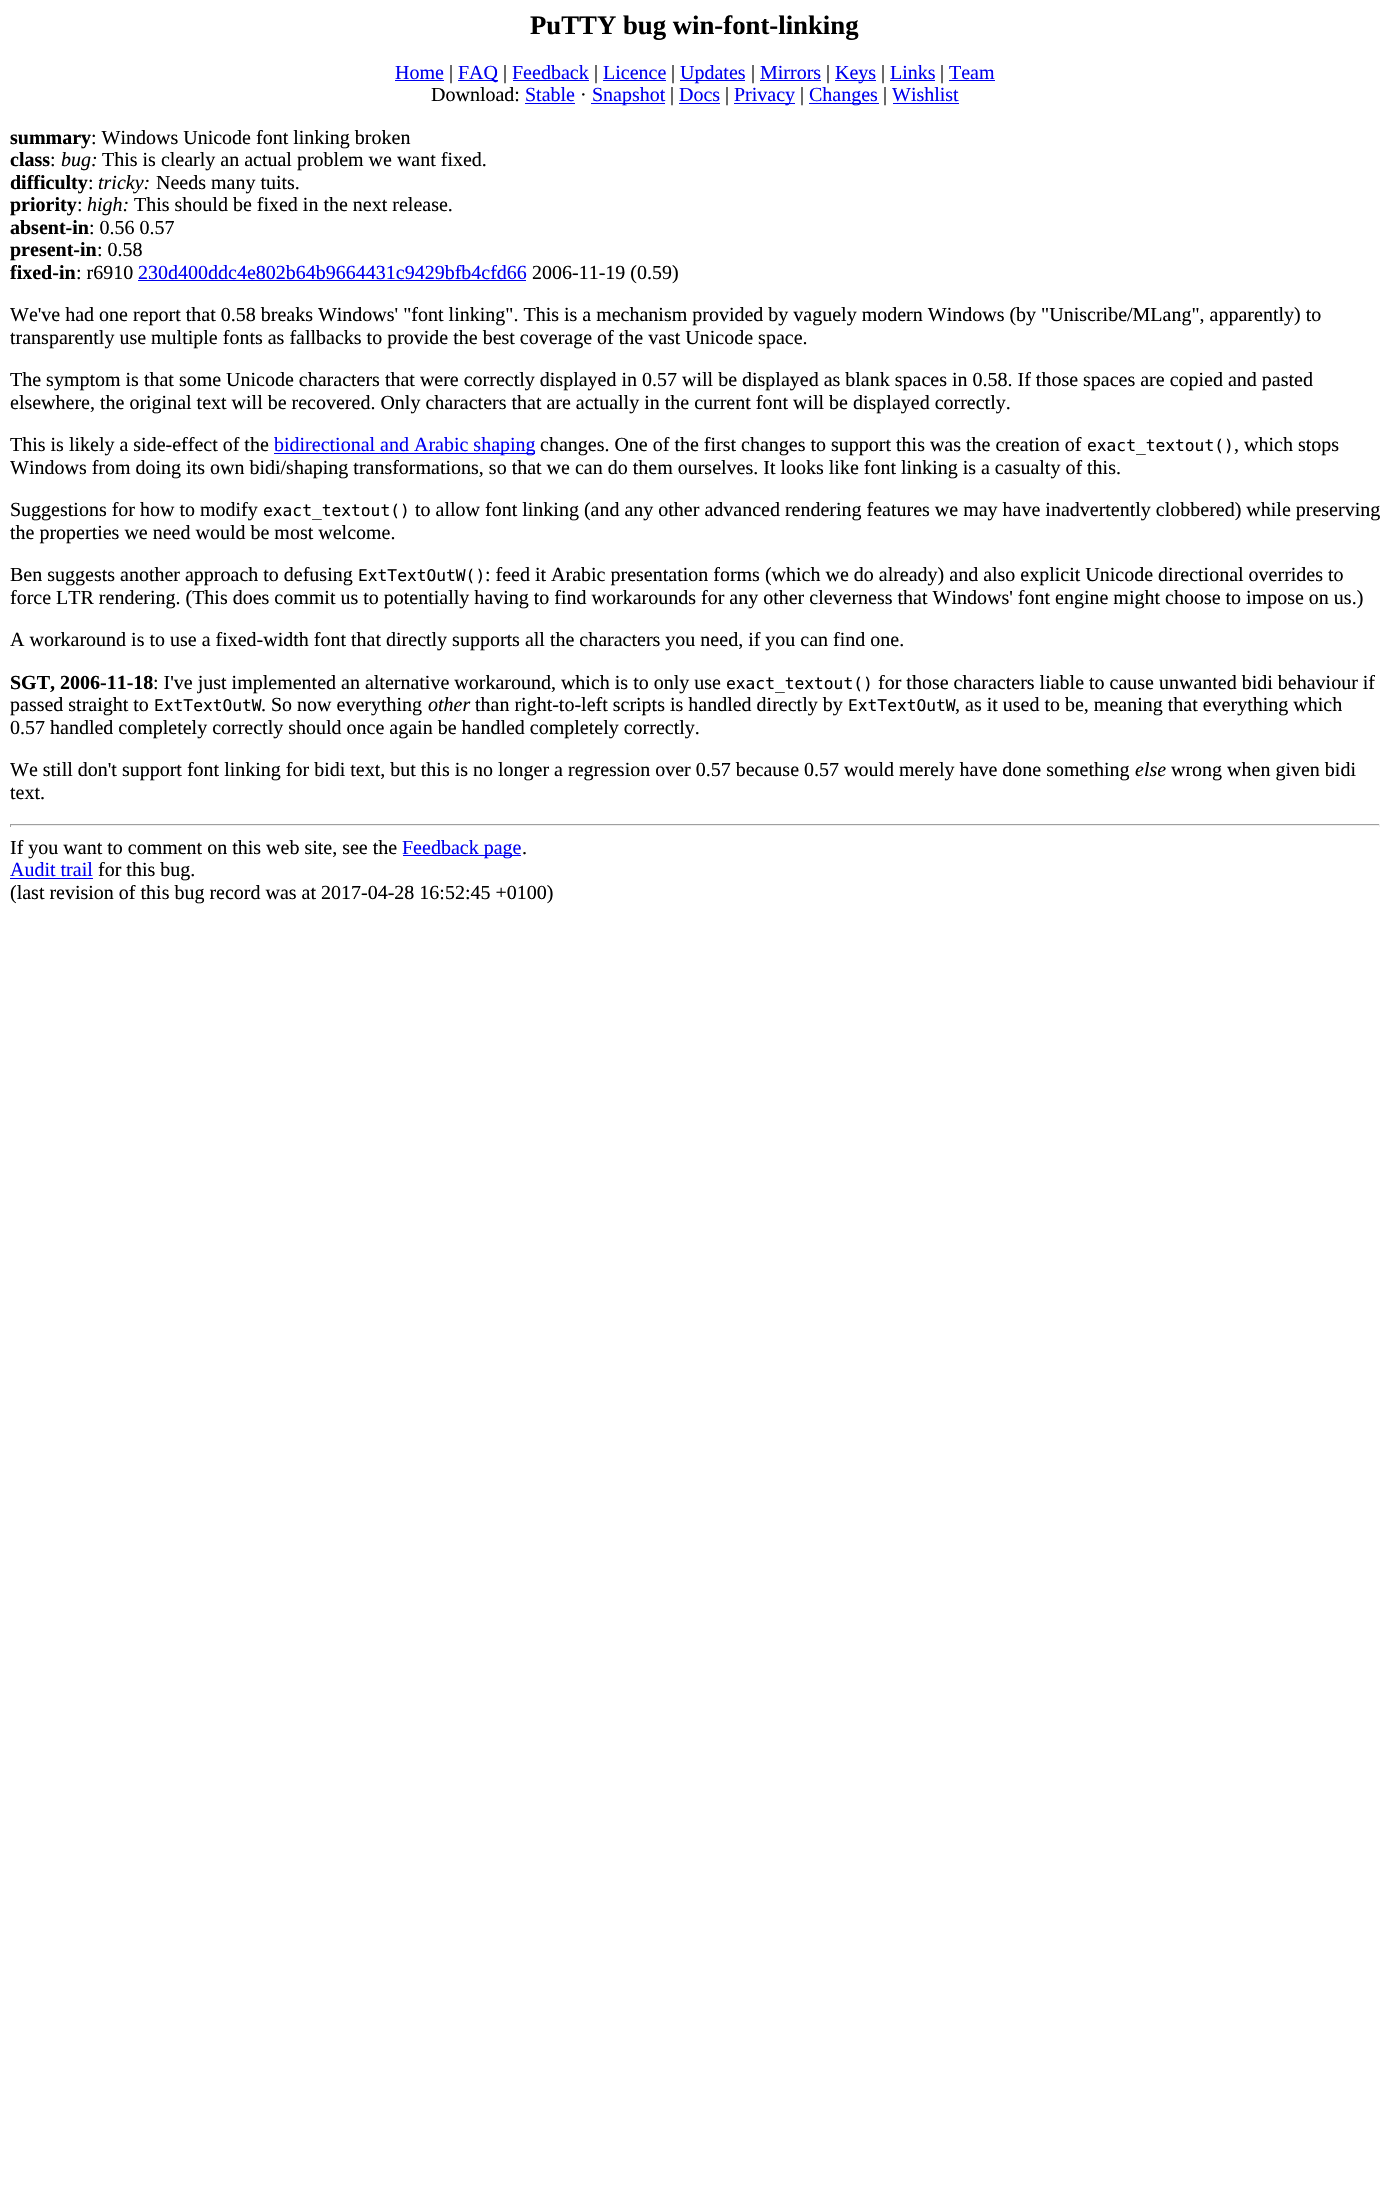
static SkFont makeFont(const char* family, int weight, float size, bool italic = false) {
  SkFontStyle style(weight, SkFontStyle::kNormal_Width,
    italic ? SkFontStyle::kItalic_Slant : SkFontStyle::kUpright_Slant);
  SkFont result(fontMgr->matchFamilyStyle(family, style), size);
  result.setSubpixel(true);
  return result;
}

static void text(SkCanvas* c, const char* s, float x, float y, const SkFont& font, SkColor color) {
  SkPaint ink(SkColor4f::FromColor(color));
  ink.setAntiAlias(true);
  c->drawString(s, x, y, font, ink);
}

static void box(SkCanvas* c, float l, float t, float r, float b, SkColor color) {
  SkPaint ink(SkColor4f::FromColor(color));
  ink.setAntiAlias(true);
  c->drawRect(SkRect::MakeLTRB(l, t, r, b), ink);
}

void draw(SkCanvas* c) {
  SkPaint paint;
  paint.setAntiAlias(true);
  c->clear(0xffffffff);
  SkFont face1 = makeFont("Liberation Serif", 700, 26.75f);
  text(c, "PuTTY bug win-font-linking", 530, 34, face1, 0xff000000);
  SkFont face2 = makeFont("Liberation Serif", 400, 20);
  text(c, "Home", 395, 79, face2, 0xff0000ee);
  box(c, 395, 80, 444, 81, 0xff0000ee);
  text(c, "|", 449, 79, face2, 0xff000000);
  box(c, 458, 80, 498, 81, 0xff0000ee);
  text(c, "FAQ", 458, 79, face2, 0xff0000ee);
  text(c, "|", 503, 79, face2, 0xff000000);
  text(c, "Feedback", 512, 79, face2, 0xff0000ee);
  box(c, 513, 80, 589, 81, 0xff0000ee);
  text(c, "|", 594, 79, face2, 0xff000000);
  text(c, "Licence", 603, 79, face2, 0xff0000ee);
  box(c, 603, 80, 666, 81, 0xff0000ee);
  text(c, "|", 671, 79, face2, 0xff000000);
  box(c, 680, 80, 745, 81, 0xff0000ee);
  text(c, "Updates", 680, 79, face2, 0xff0000ee);
  text(c, "|", 751, 79, face2, 0xff000000);
  text(c, "Mirrors", 760, 79, face2, 0xff0000ee);
  box(c, 760, 80, 821, 81, 0xff0000ee);
  text(c, "|", 826, 79, face2, 0xff000000);
  box(c, 835, 80, 876, 81, 0xff0000ee);
  text(c, "Keys", 835, 79, face2, 0xff0000ee);
  text(c, "|", 881, 79, face2, 0xff000000);
  text(c, "Links", 890, 79, face2, 0xff0000ee);
  box(c, 890, 80, 935, 81, 0xff0000ee);
  text(c, "|", 940, 79, face2, 0xff000000);
  text(c, "Team", 949, 79, face2, 0xff0000ee);
  box(c, 949, 80, 995, 81, 0xff0000ee);
  text(c, "Download:", 431, 101, face2, 0xff000000);
  text(c, "Stable", 525, 101, face2, 0xff0000ee);
  box(c, 525, 103, 575, 104, 0xff0000ee);
  text(c, "·", 580, 101, face2, 0xff000000);
  box(c, 591, 103, 665, 104, 0xff0000ee);
  text(c, "Snapshot", 592, 101, face2, 0xff0000ee);
  text(c, "|", 670, 101, face2, 0xff000000);
  text(c, "Docs", 679, 101, face2, 0xff0000ee);
  box(c, 679, 103, 720, 104, 0xff0000ee);
  text(c, "|", 725, 101, face2, 0xff000000);
  box(c, 734, 103, 795, 104, 0xff0000ee);
  text(c, "Privacy", 734, 101, face2, 0xff0000ee);
  text(c, "|", 800, 101, face2, 0xff000000);
  box(c, 809, 103, 879, 104, 0xff0000ee);
  text(c, "Changes", 809, 101, face2, 0xff0000ee);
  text(c, "|", 883, 101, face2, 0xff000000);
  text(c, "Wishlist", 892, 101, face2, 0xff0000ee);
  box(c, 893, 103, 959, 104, 0xff0000ee);
  SkFont face3 = makeFont("Liberation Serif", 700, 20);
  text(c, "summary", 10, 144, face3, 0xff000000);
  text(c, ": Windows Unicode font linking broken", 91, 144, face2, 0xff000000);
  text(c, "class", 10, 166, face3, 0xff000000);
  text(c, ":", 50, 166, face2, 0xff000000);
  SkFont face4 = makeFont("Liberation Serif", 400, 20, true);
  text(c, "bug:", 61, 166, face4, 0xff000000);
  text(c, "This is clearly an actual problem we want fixed.", 102, 166, face2, 0xff000000);
  text(c, "difficulty", 10, 189, face3, 0xff000000);
  text(c, ":", 88, 189, face2, 0xff000000);
  text(c, "tricky:", 98, 189, face4, 0xff000000);
  text(c, "Needs many tuits.", 156, 189, face2, 0xff000000);
  text(c, "priority", 10, 211, face3, 0xff000000);
  text(c, ":", 77, 211, face2, 0xff000000);
  text(c, "high:", 87, 211, face4, 0xff000000);
  text(c, "This should be fixed in the next release.", 134, 211, face2, 0xff000000);
  text(c, "absent-in", 10, 234, face3, 0xff000000);
  text(c, ": 0.56 0.57", 89, 234, face2, 0xff000000);
  text(c, "present-in", 10, 256, face3, 0xff000000);
  text(c, ": 0.58", 97, 256, face2, 0xff000000);
  text(c, "fixed-in", 10, 279, face3, 0xff000000);
  text(c, ": r6910", 76, 279, face2, 0xff000000);
  text(c, "230d400ddc4e802b64b9664431c9429bfb4cfd66", 138, 279, face2, 0xff0000ee);
  box(c, 138, 280, 526, 281, 0xff0000ee);
  text(c, "2006-11-19 (0.59)", 532, 279, face2, 0xff000000);
  text(c, "We've had one report that 0.58 breaks Windows' \"font linking\". This is a mechanism provided by vaguely modern Windows (by \"Uniscribe/MLang\", apparently) to", 10, 321, face2, 0xff000000);
  text(c, "transparently use multiple fonts as fallbacks to provide the best coverage of the vast Unicode space.", 10, 344, face2, 0xff000000);
  text(c, "The symptom is that some Unicode characters that were correctly displayed in 0.57 will be displayed as blank spaces in 0.58. If those spaces are copied and pasted", 10, 386, face2, 0xff000000);
  text(c, "elsewhere, the original text will be recovered. Only characters that are actually in the current font will be displayed correctly.", 10, 409, face2, 0xff000000);
  text(c, "This is likely a side-effect of the", 10, 451, face2, 0xff000000);
  box(c, 274, 453, 535, 454, 0xff0000ee);
  text(c, "bidirectional and Arabic shaping", 274, 451, face2, 0xff0000ee);
  text(c, "changes. One of the first changes to support this was the creation of", 540, 451, face2, 0xff000000);
  SkFont face5 = makeFont("DejaVu Sans Mono", 400, 16.25f);
  text(c, "exact_textout()", 1087, 451, face5, 0xff000000);
  text(c, ", which stops", 1234, 451, face2, 0xff000000);
  text(c, "Windows from doing its own bidi/shaping transformations, so that we can do them ourselves. It looks like font linking is a casualty of this.", 10, 474, face2, 0xff000000);
  text(c, "Suggestions for how to modify", 10, 516, face2, 0xff000000);
  text(c, "exact_textout()", 263, 516, face5, 0xff000000);
  text(c, "to allow font linking (and any other advanced rendering features we may have inadvertently clobbered) while preserving", 415, 516, face2, 0xff000000);
  text(c, "the properties we need would be most welcome.", 10, 539, face2, 0xff000000);
  text(c, "Ben suggests another approach to defusing", 10, 581, face2, 0xff000000);
  text(c, "ExtTextOutW()", 358, 581, face5, 0xff000000);
  text(c, ": feed it Arabic presentation forms (which we do already) and also explicit Unicode directional overrides to", 485, 581, face2, 0xff000000);
  text(c, "force LTR rendering. (This does commit us to potentially having to find workarounds for any other cleverness that Windows' font engine might choose to impose on us.)", 10, 604, face2, 0xff000000);
  text(c, "A workaround is to use a fixed-width font that directly supports all the characters you need, if you can find one.", 10, 646, face2, 0xff000000);
  text(c, "SGT, 2006-11-18", 10, 689, face3, 0xff000000);
  text(c, ": I've just implemented an alternative workaround, which is to only use", 153, 689, face2, 0xff000000);
  text(c, "exact_textout()", 726, 689, face5, 0xff000000);
  text(c, "for those characters liable to cause unwanted bidi behaviour if", 878, 689, face2, 0xff000000);
  text(c, "passed straight to", 10, 711, face2, 0xff000000);
  text(c, "ExtTextOutW", 154, 711, face5, 0xff000000);
  text(c, ". So now everything", 261, 711, face2, 0xff000000);
  text(c, "other", 428, 711, face4, 0xff000000);
  text(c, "than right-to-left scripts is handled directly by", 475, 711, face2, 0xff000000);
  text(c, "ExtTextOutW", 848, 711, face5, 0xff000000);
  text(c, ", as it used to be, meaning that everything which", 955, 711, face2, 0xff000000);
  text(c, "0.57 handled completely correctly should once again be handled completely correctly.", 10, 734, face2, 0xff000000);
  text(c, "We still don't support font linking for bidi text, but this is no longer a regression over 0.57 because 0.57 would merely have done something", 10, 776, face2, 0xff000000);
  text(c, "else", 1135, 776, face4, 0xff000000);
  text(c, "wrong when given bidi", 1171, 776, face2, 0xff000000);
  text(c, "text.", 10, 799, face2, 0xff000000);
  box(c, 10, 824, 1380, 825, 0xff9f9f9f);
  box(c, 1379, 824, 1380, 827, 0xffeeeeee);
  box(c, 10, 825, 1380, 826, 0xffeeeeee);
  box(c, 10, 824, 11, 827, 0xff9f9f9f);
  text(c, "If you want to comment on this web site, see the", 10, 854, face2, 0xff000000);
  box(c, 403, 855, 521, 856, 0xff0000ee);
  text(c, "Feedback page", 402, 854, face2, 0xff0000ee);
  text(c, ".", 522, 854, face2, 0xff000000);
  text(c, "Audit trail", 10, 876, face2, 0xff0000ee);
  box(c, 10, 878, 93, 879, 0xff0000ee);
  text(c, "for this bug.", 98, 876, face2, 0xff000000);
  text(c, "(last revision of this bug record was at 2017-04-28 16:52:45 +0100)", 10, 899, face2, 0xff000000);
}
